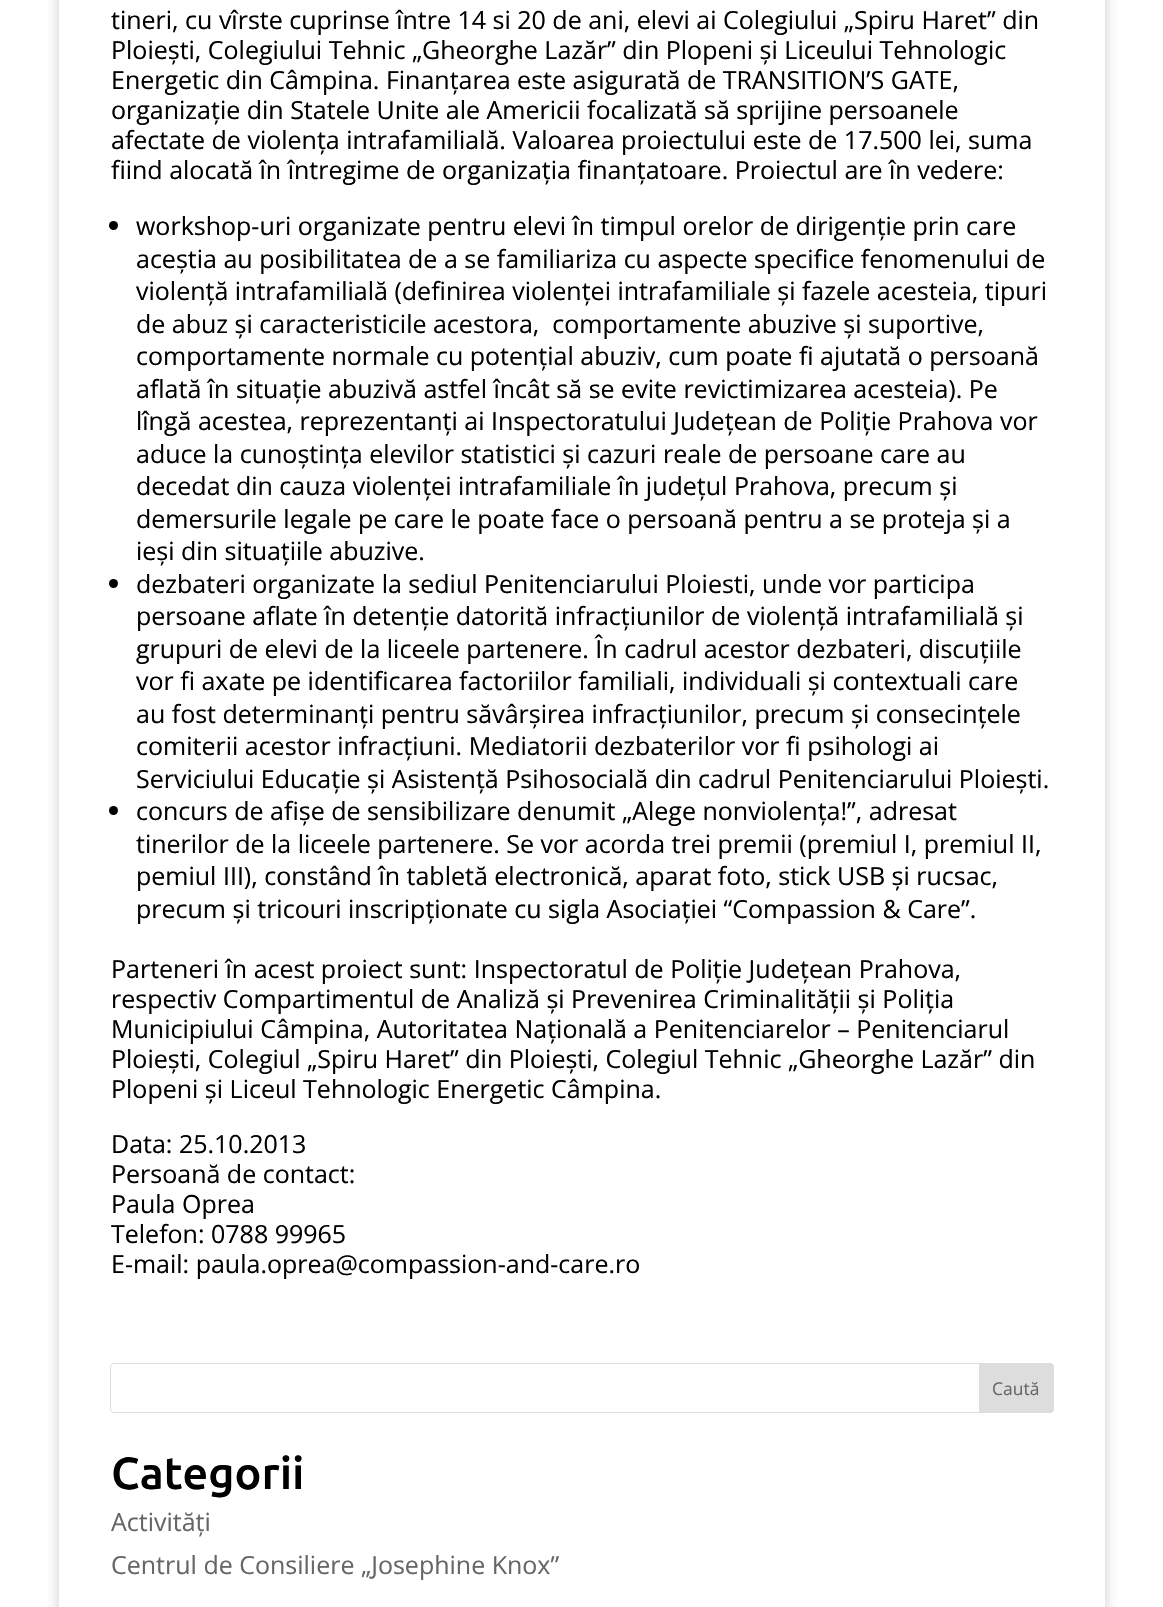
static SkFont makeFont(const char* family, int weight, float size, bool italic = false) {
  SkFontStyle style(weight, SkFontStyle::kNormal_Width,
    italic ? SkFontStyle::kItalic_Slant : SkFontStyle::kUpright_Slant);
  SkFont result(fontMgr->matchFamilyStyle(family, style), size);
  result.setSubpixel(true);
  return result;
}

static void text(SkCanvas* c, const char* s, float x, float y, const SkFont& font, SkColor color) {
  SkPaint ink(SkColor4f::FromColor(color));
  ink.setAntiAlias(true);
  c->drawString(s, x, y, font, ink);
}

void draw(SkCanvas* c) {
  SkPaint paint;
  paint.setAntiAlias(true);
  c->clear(0xffffffff);
  c->save();
  c->clipPath(SkPathBuilder(SkPathFillType::kEvenOdd).moveTo(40, 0).lineTo(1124, 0).lineTo(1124, 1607).lineTo(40, 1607).close().moveTo(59, -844).lineTo(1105, -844).lineTo(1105, 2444).lineTo(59, 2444).close().detach(), true);
  paint.setColor(0x33000000);
  paint.setMaskFilter(SkMaskFilter::MakeBlur(kNormal_SkBlurStyle, 6));
  c->drawRect(SkRect::MakeLTRB(59, -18, 1105, 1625), paint);
  paint.setMaskFilter(nullptr);
  c->restore();
  SkFont face1 = makeFont("Open Sans", 400, 25);
  text(c, "tineri, cu vîrste cuprinse între 14 si 20 de ani, elevi ai Colegiului „Spiru Haret” din", 111, 29, face1, 0xff000000);
  text(c, "Ploiești, Colegiului Tehnic „Gheorghe Lazăr” din Plopeni și Liceului Tehnologic", 111, 59, face1, 0xff000000);
  text(c, "Energetic din Câmpina. Finanțarea este asigurată de TRANSITION’S GATE,", 111, 89, face1, 0xff000000);
  text(c, "organizație din Statele Unite ale Americii focalizată să sprijine persoanele", 111, 119, face1, 0xff000000);
  text(c, "afectate de violența intrafamilială. Valoarea proiectului este de 17.500 lei, suma", 111, 149, face1, 0xff000000);
  text(c, "fiind alocată în întregime de organizația finanțatoare. Proiectul are în vedere:", 111, 179, face1, 0xff000000);
  paint.setColor(0xff000000);
  c->drawCircle(113.5f, 225.5f, 4.5f, paint);
  text(c, "workshop-uri organizate pentru elevi în timpul orelor de dirigenție prin care", 136, 235, face1, 0xff000000);
  text(c, "aceștia au posibilitatea de a se familiariza cu aspecte specifice fenomenului de", 136, 268, face1, 0xff000000);
  text(c, "violență intrafamilială (definirea violenței intrafamiliale și fazele acesteia, tipuri", 136, 300, face1, 0xff000000);
  text(c, "de abuz și caracteristicile acestora,  comportamente abuzive și suportive,", 136, 333, face1, 0xff000000);
  text(c, "comportamente normale cu potențial abuziv, cum poate fi ajutată o persoană", 136, 365, face1, 0xff000000);
  text(c, "aflată în situație abuzivă astfel încât să se evite revictimizarea acesteia). Pe", 136, 398, face1, 0xff000000);
  text(c, "lîngă acestea, reprezentanți ai Inspectoratului Județean de Poliție Prahova vor", 136, 430, face1, 0xff000000);
  text(c, "aduce la cunoștința elevilor statistici și cazuri reale de persoane care au", 136, 463, face1, 0xff000000);
  text(c, "decedat din cauza violenței intrafamiliale în județul Prahova, precum și", 136, 495, face1, 0xff000000);
  text(c, "demersurile legale pe care le poate face o persoană pentru a se proteja și a", 136, 528, face1, 0xff000000);
  text(c, "ieși din situațiile abuzive.", 136, 560, face1, 0xff000000);
  c->drawCircle(113.5f, 583.5f, 4.5f, paint);
  text(c, "dezbateri organizate la sediul Penitenciarului Ploiesti, unde vor participa", 136, 593, face1, 0xff000000);
  text(c, "persoane aflate în detenție datorită infracțiunilor de violență intrafamilială și", 136, 625, face1, 0xff000000);
  text(c, "grupuri de elevi de la liceele partenere. În cadrul acestor dezbateri, discuțiile", 136, 658, face1, 0xff000000);
  text(c, "vor fi axate pe identificarea factoriilor familiali, individuali și contextuali care", 136, 690, face1, 0xff000000);
  text(c, "au fost determinanți pentru săvârșirea infracțiunilor, precum și consecințele", 136, 723, face1, 0xff000000);
  text(c, "comiterii acestor infracțiuni. Mediatorii dezbaterilor vor fi psihologi ai", 136, 755, face1, 0xff000000);
  text(c, "Serviciului Educație și Asistență Psihosocială din cadrul Penitenciarului Ploiești.", 136, 788, face1, 0xff000000);
  c->drawCircle(113.5f, 810.5f, 4.5f, paint);
  text(c, "concurs de afișe de sensibilizare denumit „Alege nonviolența!”, adresat", 136, 820, face1, 0xff000000);
  text(c, "tinerilor de la liceele partenere. Se vor acorda trei premii (premiul I, premiul II,", 136, 853, face1, 0xff000000);
  text(c, "pemiul III), constând în tabletă electronică, aparat foto, stick USB și rucsac,", 136, 885, face1, 0xff000000);
  text(c, "precum și tricouri inscripționate cu sigla Asociației “Compassion & Care”.", 136, 918, face1, 0xff000000);
  text(c, "Parteneri în acest proiect sunt: Inspectoratul de Poliție Județean Prahova,", 111, 978, face1, 0xff000000);
  text(c, "respectiv Compartimentul de Analiză și Prevenirea Criminalității și Poliția", 111, 1008, face1, 0xff000000);
  text(c, "Municipiului Câmpina, Autoritatea Națională a Penitenciarelor – Penitenciarul", 111, 1038, face1, 0xff000000);
  text(c, "Ploiești, Colegiul „Spiru Haret” din Ploiești, Colegiul Tehnic „Gheorghe Lazăr” din", 111, 1068, face1, 0xff000000);
  text(c, "Plopeni și Liceul Tehnologic Energetic Câmpina.", 111, 1098, face1, 0xff000000);
  text(c, "Data: 25.10.2013", 111, 1153, face1, 0xff000000);
  text(c, "Persoană de contact:", 111, 1183, face1, 0xff000000);
  text(c, "Paula Oprea", 111, 1213, face1, 0xff000000);
  text(c, "Telefon: 0788 99965", 111, 1243, face1, 0xff000000);
  text(c, "E-mail: paula.oprea@compassion-and-care.ro", 111, 1273, face1, 0xff000000);
  paint.setStyle(SkPaint::kStroke_Style);
  paint.setStrokeWidth(1);
  paint.setColor(0xffdddddd);
  c->drawRoundRect(SkRect::MakeLTRB(110.5f, 1363.5f, 1053.5f, 1412.5f), 3.5f, 3.5f, paint);
  paint.setStyle(SkPaint::kFill_Style);
  c->drawPath(SkPathBuilder().moveTo(979.5f, 1363.5f).lineTo(1050, 1363.5f).cubicTo(1052, 1363.5f, 1053.5f, 1365, 1053.5f, 1367).lineTo(1053.5f, 1409).cubicTo(1053.5f, 1411, 1052, 1412.5f, 1050, 1412.5f).lineTo(979.5f, 1412.5f).close().detach(), paint);
  paint.setStyle(SkPaint::kStroke_Style);
  c->drawPath(SkPathBuilder().moveTo(979.5f, 1363.5f).lineTo(1050, 1363.5f).cubicTo(1052, 1363.5f, 1053.5f, 1365, 1053.5f, 1367).lineTo(1053.5f, 1409).cubicTo(1053.5f, 1411, 1052, 1412.5f, 1050, 1412.5f).lineTo(979.5f, 1412.5f).close().detach(), paint);
  SkFont face2 = makeFont("Open Sans", 400, 17.5f);
  text(c, "Caută", 992, 1395, face2, 0xff666666);
  SkFont face3 = makeFont("Ubuntu", 500, 45);
  text(c, "Categorii", 111, 1489, face3, 0xff000000);
  text(c, "Activități", 111, 1531, face1, 0xff666666);
  text(c, "Centrul de Consiliere „Josephine Knox”", 111, 1574, face1, 0xff666666);
}
